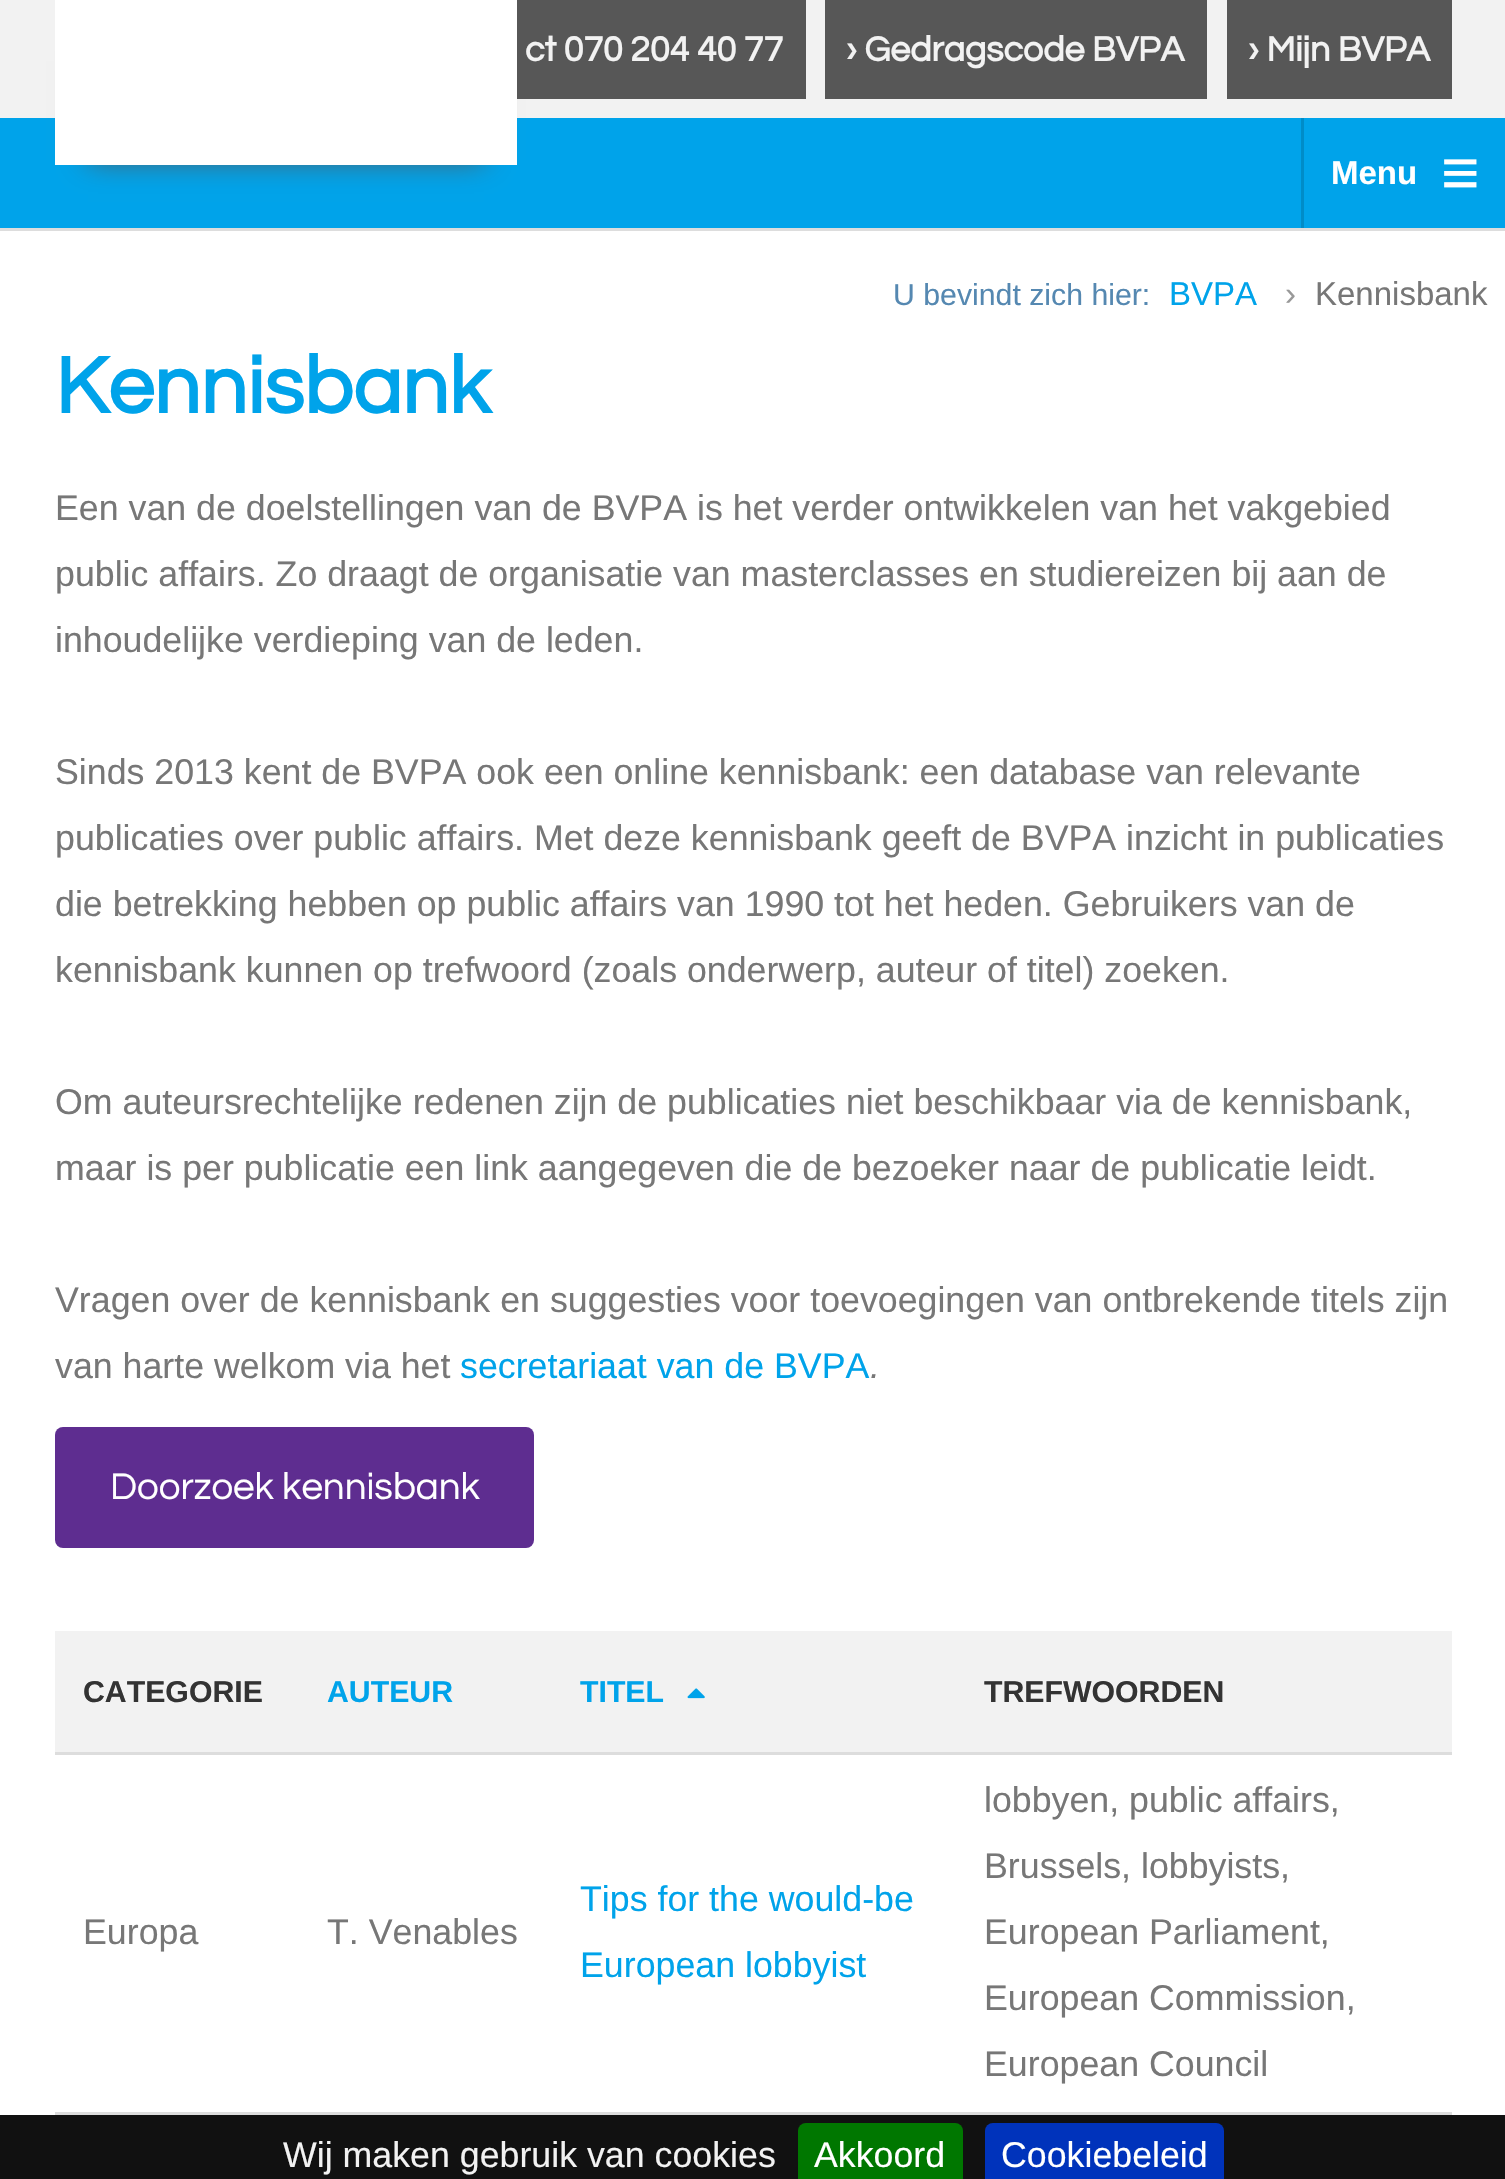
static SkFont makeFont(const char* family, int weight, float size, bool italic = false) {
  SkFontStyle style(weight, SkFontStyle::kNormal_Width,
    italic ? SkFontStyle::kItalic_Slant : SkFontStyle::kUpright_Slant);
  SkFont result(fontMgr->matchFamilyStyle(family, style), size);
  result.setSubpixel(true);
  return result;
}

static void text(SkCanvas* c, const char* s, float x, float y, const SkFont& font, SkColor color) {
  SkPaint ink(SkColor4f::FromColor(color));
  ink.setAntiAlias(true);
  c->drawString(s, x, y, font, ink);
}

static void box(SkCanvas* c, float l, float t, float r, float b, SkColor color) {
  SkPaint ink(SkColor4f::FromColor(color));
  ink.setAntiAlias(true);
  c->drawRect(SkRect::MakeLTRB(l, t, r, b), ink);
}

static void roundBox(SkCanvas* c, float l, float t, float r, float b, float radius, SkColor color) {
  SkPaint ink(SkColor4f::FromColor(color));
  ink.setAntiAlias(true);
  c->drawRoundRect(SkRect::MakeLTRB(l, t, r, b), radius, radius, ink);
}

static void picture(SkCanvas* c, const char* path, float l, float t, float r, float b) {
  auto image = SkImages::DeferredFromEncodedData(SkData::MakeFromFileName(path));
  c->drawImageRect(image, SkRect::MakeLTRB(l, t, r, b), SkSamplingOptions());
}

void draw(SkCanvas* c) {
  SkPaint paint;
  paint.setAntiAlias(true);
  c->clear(0xfff2f2f2);
  box(c, 517, 0, 806, 99, 0xff575757);
  box(c, 0, 118, 1505, 228, 0xff00a3ea);
  paint.setColor(0xff555555);
  paint.setMaskFilter(SkMaskFilter::MakeBlur(kNormal_SkBlurStyle, 14));
  c->drawRect(SkRect::MakeLTRB(88, 61, 484, 160), paint);
  paint.setMaskFilter(nullptr);
  box(c, 55, 0, 517, 165, 0xffffffff);
  SkFont face1 = makeFont("Questrial", 700, 35.75f);
  text(c, "ct 070 204 40 77", 525, 61, face1, 0xfff2f2f2);
  box(c, 825, 0, 1207, 99, 0xff575757);
  text(c, "› Gedragscode BVPA", 846, 61, face1, 0xfff2f2f2);
  box(c, 1227, 0, 1452, 99, 0xff575757);
  text(c, "› Mijn BVPA", 1248, 61, face1, 0xfff2f2f2);
  box(c, 1301, 118, 1304, 228, 0xff008cc8);
  SkFont face2 = makeFont("Liberation Sans", 700, 33);
  text(c, "Menu", 1331, 184, face2, 0xffffffff);
  SkFont face3 = makeFont("Liberation Sans", 700, 66);
  text(c, "≡", 1441, 195, face3, 0xffffffff);
  box(c, 0, 228, 1505, 231, 0xffdddddd);
  box(c, 0, 231, 1505, 2115, 0xffffffff);
  SkFont face4 = makeFont("Liberation Sans", 400, 30.25f);
  text(c, "U bevindt zich hier:", 893, 305, face4, 0xff5588b1);
  SkFont face5 = makeFont("Liberation Sans", 400, 33);
  text(c, "BVPA", 1169, 305, face5, 0xff00a3ea);
  text(c, "›", 1285, 305, face5, 0xff999999);
  text(c, "Kennisbank", 1315, 305, face5, 0xff777777);
  SkFont face6 = makeFont("Questrial", 700, 82.5f);
  text(c, "Kennisbank", 55, 413, face6, 0xff00a3ea);
  SkFont face7 = makeFont("Liberation Sans", 400, 35.75f);
  text(c, "Een van de doelstellingen van de BVPA is het verder ontwikkelen van het vakgebied", 55, 520, face7, 0xff777777);
  text(c, "public affairs. Zo draagt de organisatie van masterclasses en studiereizen bij aan de", 55, 586, face7, 0xff777777);
  text(c, "inhoudelijke verdieping van de leden.", 55, 652, face7, 0xff777777);
  text(c, "Sinds 2013 kent de BVPA ook een online kennisbank: een database van relevante", 55, 784, face7, 0xff777777);
  text(c, "publicaties over public affairs. Met deze kennisbank geeft de BVPA inzicht in publicaties", 55, 850, face7, 0xff777777);
  text(c, "die betrekking hebben op public affairs van 1990 tot het heden. Gebruikers van de", 55, 916, face7, 0xff777777);
  text(c, "kennisbank kunnen op trefwoord (zoals onderwerp, auteur of titel) zoeken.", 55, 982, face7, 0xff777777);
  text(c, "Om auteursrechtelijke redenen zijn de publicaties niet beschikbaar via de kennisbank,", 55, 1114, face7, 0xff777777);
  text(c, "maar is per publicatie een link aangegeven die de bezoeker naar de publicatie leidt.", 55, 1180, face7, 0xff777777);
  text(c, "Vragen over de kennisbank en suggesties voor toevoegingen van ontbrekende titels zijn", 55, 1312, face7, 0xff777777);
  text(c, "van harte welkom via het", 55, 1378, face7, 0xff777777);
  text(c, "secretariaat van de BVPA", 460, 1378, face7, 0xff00a3ea);
  SkFont face8 = makeFont("Liberation Sans", 400, 35.75f, true);
  text(c, ".", 870, 1378, face8, 0xff777777);
  roundBox(c, 55, 1427, 534, 1548, 8, 0xff5e2d90);
  SkFont face9 = makeFont("Questrial", 400, 38.5f);
  text(c, "Doorzoek kennisbank", 110, 1499, face9, 0xffffffff);
  box(c, 55, 1631, 1452, 1752, 0xfff2f2f2);
  SkFont face10 = makeFont("Liberation Sans", 700, 30.25f);
  text(c, "CATEGORIE", 83, 1702, face10, 0xff333333);
  text(c, "AUTEUR", 327, 1702, face10, 0xff00a3ea);
  text(c, "TITEL", 580, 1702, face10, 0xff00a3ea);
  picture(c, "img_01.png", 687, 1688, 705, 1699);
  box(c, 55, 1752, 1452, 1755, 0xffdddddd);
  text(c, "TREFWOORDEN", 984, 1702, face10, 0xff333333);
  text(c, "Europa", 83, 1944, face7, 0xff777777);
  text(c, "T. Venables", 327, 1944, face7, 0xff777777);
  text(c, "Tips for the would-be", 580, 1911, face7, 0xff00a3ea);
  text(c, "European lobbyist", 580, 1977, face7, 0xff00a3ea);
  box(c, 55, 2112, 1452, 2115, 0xffdddddd);
  text(c, "lobbyen, public affairs,", 984, 1812, face7, 0xff777777);
  text(c, "Brussels, lobbyists,", 984, 1878, face7, 0xff777777);
  text(c, "European Parliament,", 984, 1944, face7, 0xff777777);
  text(c, "European Commission,", 984, 2010, face7, 0xff777777);
  text(c, "European Council", 984, 2076, face7, 0xff777777);
  box(c, 0, 2115, 1505, 2179, 0xff111111);
  text(c, "Wij maken gebruik van cookies", 283, 2167, face7, 0xfff2f2f2);
  roundBox(c, 798, 2123, 963, 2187, 8, 0xff007700);
  text(c, "Akkoord", 814, 2167, face7, 0xffffffff);
  roundBox(c, 985, 2123, 1224, 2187, 8, 0xff0033bb);
  text(c, "Cookiebeleid", 1001, 2167, face7, 0xffffffff);
}
